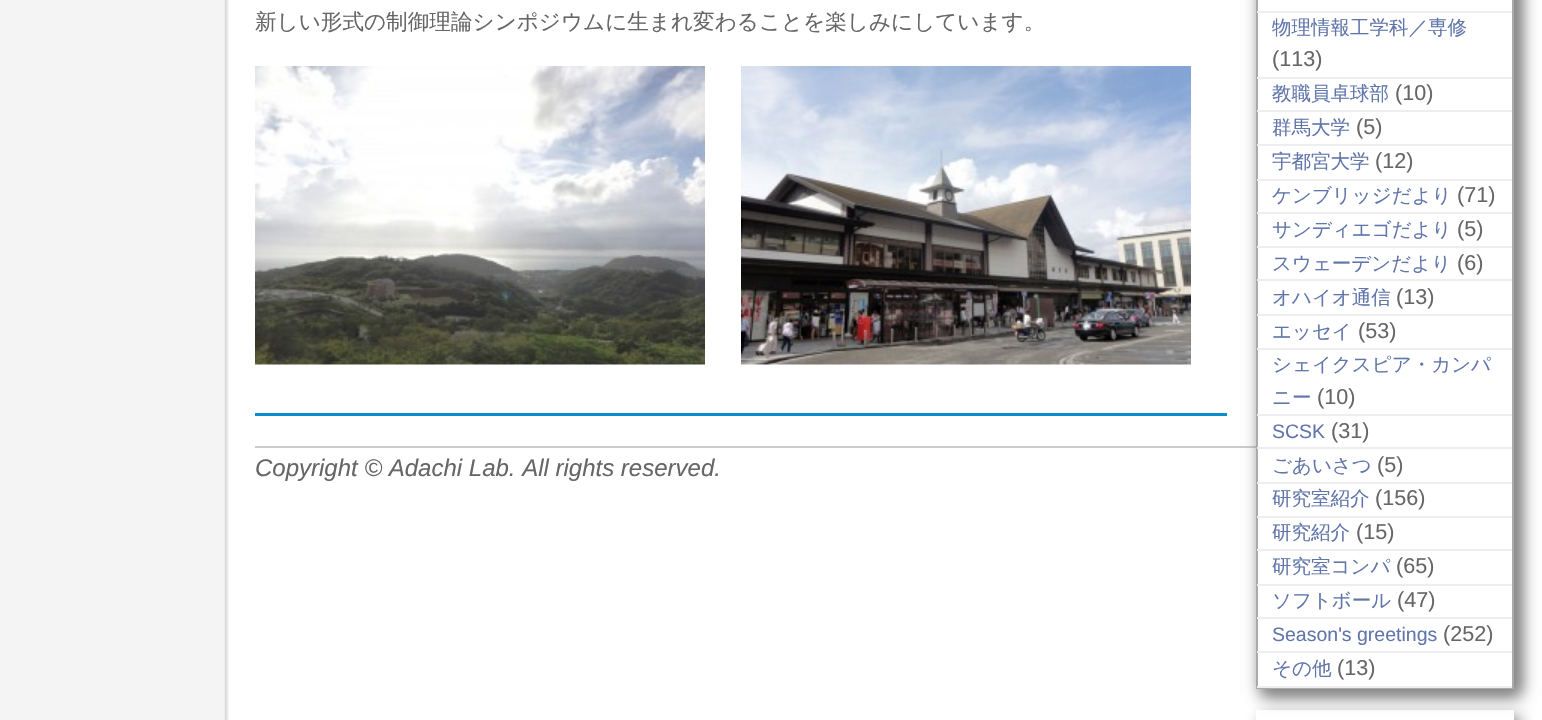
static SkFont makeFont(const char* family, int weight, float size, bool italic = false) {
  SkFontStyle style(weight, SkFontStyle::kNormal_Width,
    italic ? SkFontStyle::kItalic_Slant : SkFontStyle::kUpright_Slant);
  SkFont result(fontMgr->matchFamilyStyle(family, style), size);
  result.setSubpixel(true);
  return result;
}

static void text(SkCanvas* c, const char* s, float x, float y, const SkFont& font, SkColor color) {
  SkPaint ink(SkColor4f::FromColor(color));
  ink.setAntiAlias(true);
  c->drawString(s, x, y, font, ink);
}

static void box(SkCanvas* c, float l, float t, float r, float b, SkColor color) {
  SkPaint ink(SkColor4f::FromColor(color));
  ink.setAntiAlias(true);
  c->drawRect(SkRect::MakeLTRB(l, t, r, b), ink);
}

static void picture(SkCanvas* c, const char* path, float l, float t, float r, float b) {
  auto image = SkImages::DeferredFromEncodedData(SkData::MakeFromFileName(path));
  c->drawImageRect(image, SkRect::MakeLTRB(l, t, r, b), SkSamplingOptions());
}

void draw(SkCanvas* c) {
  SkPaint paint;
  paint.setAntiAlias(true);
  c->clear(0xffffffff);
  picture(c, "img_01.png", 0, 0, 229, 720);
  SkFont face1 = makeFont("WenQuanYi Zen Hei", 500, 21.6f);
  text(c, "新しい形式の制御理論シンポジウムに生まれ変わることを楽しみにしています。", 255, 29, face1, 0xff666666);
  picture(c, "img_02.png", 255, 66, 705, 365);
  picture(c, "img_03.png", 741, 66, 1191, 365);
  box(c, 255, 413, 1227, 416, 0xff0c8ccd);
  box(c, 255, 446, 1256, 448, 0xffcccccc);
  paint.setColor(0xff888888);
  paint.setMaskFilter(SkMaskFilter::MakeBlur(kNormal_SkBlurStyle, 7.5f));
  c->drawRect(SkRect::MakeLTRB(1262, -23, 1520, 695), paint);
  paint.setMaskFilter(nullptr);
  paint.setMaskFilter(SkMaskFilter::MakeBlur(kNormal_SkBlurStyle, 7.5f));
  c->drawRect(SkRect::MakeLTRB(1262, -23, 1520, 695), paint);
  paint.setMaskFilter(nullptr);
  box(c, 1258, 0, 1512, 686, 0xffffffff);
  paint.setStyle(SkPaint::kStroke_Style);
  paint.setStrokeWidth(2);
  paint.setColor(0xffaaaaaa);
  c->drawRect(SkRect::MakeLTRB(1257, -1, 1513, 688), paint);
  box(c, 1257, 11, 1512, 13, 0xffeeeeee);
  box(c, 1257, 77, 1512, 79, 0xffeeeeee);
  SkFont face2 = makeFont("WenQuanYi Zen Hei", 500, 19.5f);
  text(c, "物理情報工学科／専修", 1272, 34, face2, 0xff6075aa);
  SkFont face3 = makeFont("Liberation Sans", 400, 21.6f);
  text(c, "(113)", 1272, 66, face3, 0xff666666);
  box(c, 1257, 110, 1512, 112, 0xffeeeeee);
  text(c, "教職員卓球部", 1272, 100, face2, 0xff6075aa);
  text(c, "(10)", 1395, 100, face3, 0xff666666);
  box(c, 1257, 144, 1512, 146, 0xffeeeeee);
  text(c, "群馬大学", 1272, 134, face2, 0xff6075aa);
  text(c, "(5)", 1356, 134, face3, 0xff666666);
  box(c, 1257, 179, 1512, 181, 0xffeeeeee);
  text(c, "宇都宮大学", 1272, 168, face2, 0xff6075aa);
  text(c, "(12)", 1375, 168, face3, 0xff666666);
  box(c, 1257, 212, 1512, 214, 0xffeeeeee);
  text(c, "ケンブリッジだより", 1272, 202, face2, 0xff6075aa);
  text(c, "(71)", 1457, 202, face3, 0xff666666);
  box(c, 1257, 246, 1512, 248, 0xffeeeeee);
  text(c, "サンディエゴだより", 1272, 236, face2, 0xff6075aa);
  text(c, "(5)", 1457, 236, face3, 0xff666666);
  box(c, 1257, 279, 1512, 281, 0xffeeeeee);
  text(c, "スウェーデンだより", 1272, 270, face2, 0xff6075aa);
  text(c, "(6)", 1457, 270, face3, 0xff666666);
  box(c, 1257, 314, 1512, 316, 0xffeeeeee);
  text(c, "オハイオ通信", 1272, 304, face2, 0xff6075aa);
  text(c, "(13)", 1396, 304, face3, 0xff666666);
  box(c, 1257, 348, 1512, 350, 0xffeeeeee);
  text(c, "エッセイ", 1272, 338, face2, 0xff6075aa);
  text(c, "(53)", 1358, 338, face3, 0xff666666);
  box(c, 1257, 414, 1512, 416, 0xffeeeeee);
  text(c, "シェイクスピア・カンパ", 1272, 371, face2, 0xff6075aa);
  text(c, "ニー", 1272, 404, face2, 0xff6075aa);
  text(c, "(10)", 1317, 404, face3, 0xff666666);
  box(c, 1257, 447, 1512, 449, 0xffeeeeee);
  SkFont face4 = makeFont("Liberation Sans", 400, 19.5f);
  text(c, "SCSK", 1272, 438, face4, 0xff6075aa);
  text(c, "(31)", 1331, 438, face3, 0xff666666);
  box(c, 1257, 482, 1512, 484, 0xffeeeeee);
  text(c, "ごあいさつ", 1272, 472, face2, 0xff6075aa);
  text(c, "(5)", 1377, 472, face3, 0xff666666);
  box(c, 1257, 516, 1512, 518, 0xffeeeeee);
  text(c, "研究室紹介", 1272, 505, face2, 0xff6075aa);
  text(c, "(156)", 1375, 505, face3, 0xff666666);
  box(c, 1257, 549, 1512, 551, 0xffeeeeee);
  text(c, "研究紹介", 1272, 539, face2, 0xff6075aa);
  text(c, "(15)", 1356, 539, face3, 0xff666666);
  box(c, 1257, 584, 1512, 586, 0xffeeeeee);
  text(c, "研究室コンパ", 1272, 573, face2, 0xff6075aa);
  text(c, "(65)", 1396, 573, face3, 0xff666666);
  box(c, 1257, 617, 1512, 619, 0xffeeeeee);
  text(c, "ソフトボール", 1272, 607, face2, 0xff6075aa);
  text(c, "(47)", 1397, 607, face3, 0xff666666);
  box(c, 1257, 651, 1512, 653, 0xffeeeeee);
  text(c, "Season's greetings", 1272, 641, face4, 0xff6075aa);
  text(c, "(252)", 1443, 641, face3, 0xff666666);
  box(c, 1257, 686, 1512, 688, 0xffeeeeee);
  text(c, "その他", 1272, 675, face2, 0xff6075aa);
  text(c, "(13)", 1337, 675, face3, 0xff666666);
  c->save();
  c->clipPath(SkPathBuilder(SkPathFillType::kEvenOdd).moveTo(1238, 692).lineTo(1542, 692).lineTo(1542, 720).lineTo(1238, 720).close().moveTo(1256, 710).lineTo(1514, 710).lineTo(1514, 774).lineTo(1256, 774).close().detach(), true);
  paint.setStyle(SkPaint::kFill_Style);
  paint.setColor(0xff888888);
  paint.setMaskFilter(SkMaskFilter::MakeBlur(kNormal_SkBlurStyle, 7.5f));
  c->drawRect(SkRect::MakeLTRB(1262, 716, 1520, 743), paint);
  paint.setMaskFilter(nullptr);
  c->restore();
  SkFont face5 = makeFont("Liberation Sans", 400, 24, true);
  text(c, "Copyright © Adachi Lab. All rights reserved.", 255, 476, face5, 0xff666666);
}
